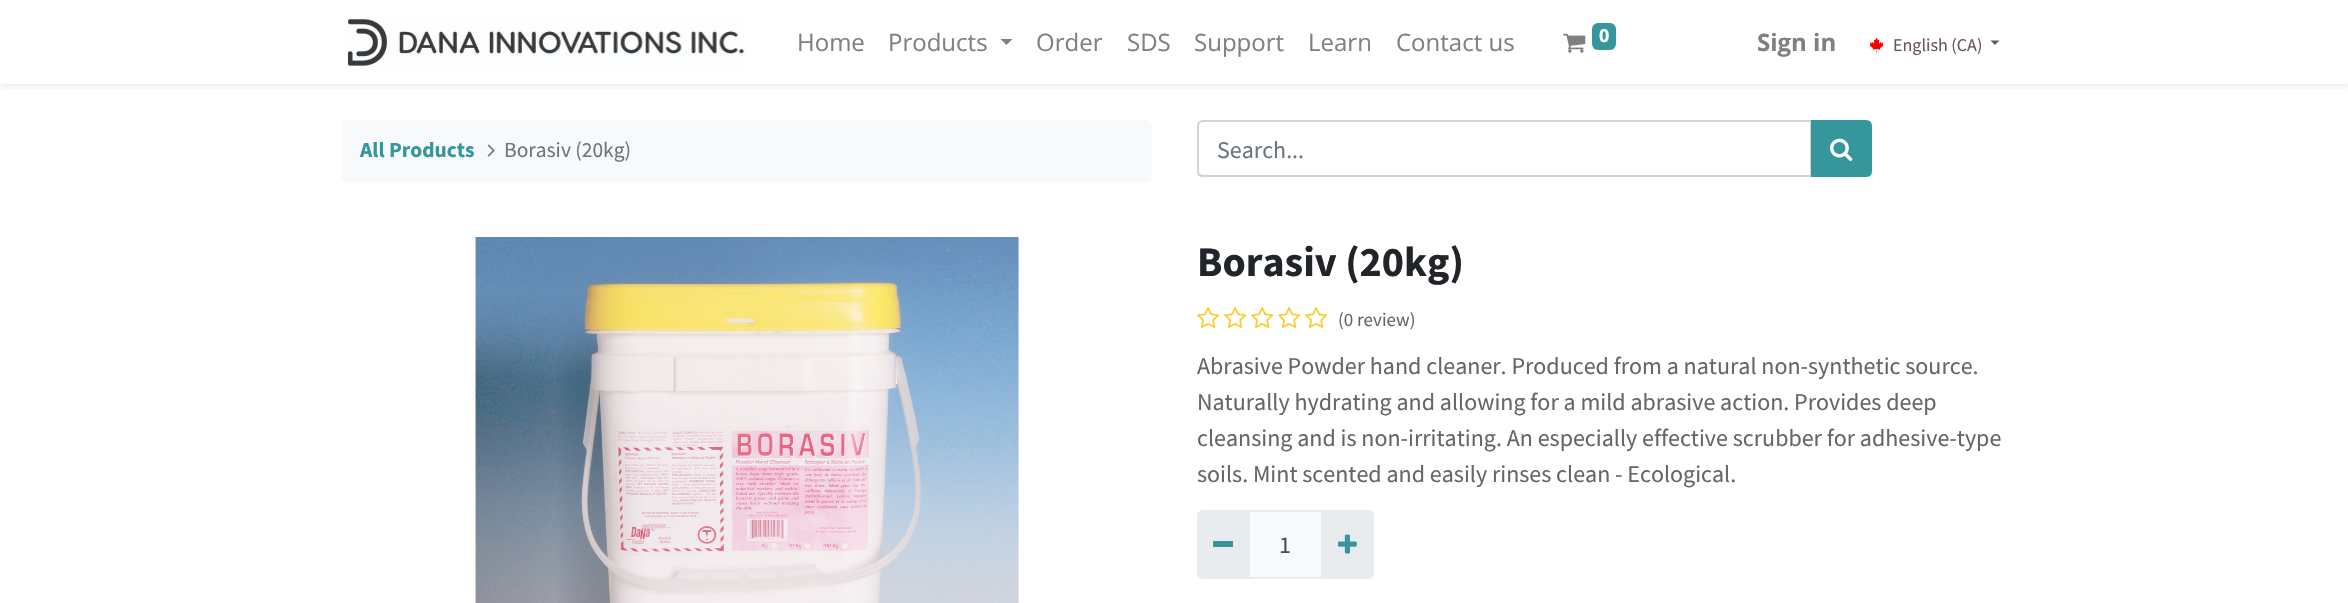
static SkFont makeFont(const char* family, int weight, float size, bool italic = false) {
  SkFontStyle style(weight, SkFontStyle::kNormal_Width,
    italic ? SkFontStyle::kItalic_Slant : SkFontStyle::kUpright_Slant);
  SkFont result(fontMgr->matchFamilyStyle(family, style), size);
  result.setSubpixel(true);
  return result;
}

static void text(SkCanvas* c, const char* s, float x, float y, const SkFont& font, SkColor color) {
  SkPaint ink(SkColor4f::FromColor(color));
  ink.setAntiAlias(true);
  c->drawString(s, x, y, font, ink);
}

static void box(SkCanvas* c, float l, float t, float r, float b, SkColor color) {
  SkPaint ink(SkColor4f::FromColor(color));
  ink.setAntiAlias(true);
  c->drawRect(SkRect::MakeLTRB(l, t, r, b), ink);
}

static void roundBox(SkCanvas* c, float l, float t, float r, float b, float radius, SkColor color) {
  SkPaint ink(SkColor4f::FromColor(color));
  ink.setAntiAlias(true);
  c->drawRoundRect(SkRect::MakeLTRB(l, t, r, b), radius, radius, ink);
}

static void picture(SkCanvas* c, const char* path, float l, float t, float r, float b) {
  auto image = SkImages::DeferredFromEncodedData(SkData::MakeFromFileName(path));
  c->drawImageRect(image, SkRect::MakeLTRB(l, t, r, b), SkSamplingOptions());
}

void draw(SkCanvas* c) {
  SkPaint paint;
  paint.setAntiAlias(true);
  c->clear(0xffffffff);
  c->save();
  c->clipRect(SkRect::MakeLTRB(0, 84, 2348, 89));
  paint.setColor(0x12000000);
  paint.setMaskFilter(SkMaskFilter::MakeBlur(kNormal_SkBlurStyle, 3));
  c->drawRect(SkRect::MakeLTRB(0, 3, 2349, 87), paint);
  paint.setMaskFilter(nullptr);
  c->restore();
  picture(c, "img_01.png", 346, 18, 747, 68);
  SkFont face1 = makeFont("Open Sans", 400, 24);
  text(c, "Home", 797, 51, face1, 0xff808080);
  text(c, "Products", 888, 51, face1, 0xff808080);
  paint.setColor(0xff808080);
  c->drawPath(SkPathBuilder().moveTo(1000.5f, 39).lineTo(1012.5f, 39).lineTo(1006.5f, 45).close().detach(), paint);
  text(c, "Order", 1036, 51, face1, 0xff808080);
  text(c, "SDS", 1127, 51, face1, 0xff808080);
  text(c, "Support", 1194, 51, face1, 0xff808080);
  text(c, "Learn", 1308, 51, face1, 0xff808080);
  text(c, "Contact us", 1396, 51, face1, 0xff808080);
  picture(c, "img_02.png", 1563, 33, 1586, 53);
  roundBox(c, 1592, 23, 1616, 50, 6, 0xff35979c);
  SkFont face2 = makeFont("Open Sans", 700, 18);
  text(c, "0", 1599, 42, face2, 0xffffffff);
  SkFont face3 = makeFont("Open Sans", 700, 24);
  text(c, "Sign in", 1757, 51, face3, 0xff808080);
  picture(c, "img_03.png", 1867, 37, 1886, 54);
  SkFont face4 = makeFont("Source Sans Pro", 400, 18);
  text(c, "English (CA)", 1893, 51, face4, 0xff685563);
  paint.setColor(0xff685563);
  c->drawPath(SkPathBuilder().moveTo(1990.5f, 40.5f).lineTo(1999.5f, 40.5f).lineTo(1995, 45).close().detach(), paint);
  roundBox(c, 342, 120, 1152, 182, 6, 0xfff8f9fa);
  SkFont face5 = makeFont("Source Sans Pro", 700, 21.5f);
  text(c, "All Products", 360, 157, face5, 0xff35979c);
  picture(c, "img_04.png", 487, 144, 495, 157);
  SkFont face6 = makeFont("Source Sans Pro", 400, 21.5f);
  text(c, "Borasiv (20kg)", 504, 157, face6, 0xff6c757d);
  paint.setStyle(SkPaint::kStroke_Style);
  paint.setStrokeWidth(2);
  paint.setColor(0xffced4da);
  c->drawPath(SkPathBuilder().moveTo(1203, 121).lineTo(1811, 121).lineTo(1811, 176).lineTo(1203, 176).cubicTo(1200, 176, 1198, 174, 1198, 171).lineTo(1198, 126).cubicTo(1198, 123, 1200, 121, 1203, 121).close().detach(), paint);
  SkFont face7 = makeFont("Source Sans Pro", 400, 24);
  text(c, "Search...", 1217, 158, face7, 0xff6c757d);
  paint.setStyle(SkPaint::kFill_Style);
  paint.setColor(0xff35979c);
  c->drawPath(SkPathBuilder().moveTo(1812, 121).lineTo(1866, 121).cubicTo(1869, 121, 1871, 123, 1871, 126).lineTo(1871, 171).cubicTo(1871, 174, 1869, 176, 1866, 176).lineTo(1812, 176).close().detach(), paint);
  paint.setStyle(SkPaint::kStroke_Style);
  c->drawPath(SkPathBuilder().moveTo(1812, 121).lineTo(1866, 121).cubicTo(1869, 121, 1871, 123, 1871, 126).lineTo(1871, 171).cubicTo(1871, 174, 1869, 176, 1866, 176).lineTo(1812, 176).close().detach(), paint);
  picture(c, "img_05.png", 1830, 138, 1853, 161);
  picture(c, "img_06.png", 475, 237, 1019, 603);
  SkFont face8 = makeFont("Source Sans Pro", 700, 42);
  text(c, "Borasiv (20kg)", 1197, 276, face8, 0xff212529);
  picture(c, "img_07.png", 1197, 306, 1220, 329);
  picture(c, "img_07.png", 1224, 306, 1247, 329);
  picture(c, "img_07.png", 1251, 306, 1274, 329);
  picture(c, "img_07.png", 1278, 306, 1301, 329);
  picture(c, "img_07.png", 1305, 306, 1328, 329);
  SkFont face9 = makeFont("Source Sans Pro", 400, 19);
  text(c, "(0 review)", 1338, 326, face9, 0xff646669);
  text(c, "Abrasive Powder hand cleaner. Produced from a natural non-synthetic source.", 1197, 374, face7, 0xff646669);
  text(c, "Naturally hydrating and allowing for a mild abrasive action. Provides deep", 1197, 410, face7, 0xff646669);
  text(c, "cleansing and is non-irritating. An especially effective scrubber for adhesive-type", 1197, 446, face7, 0xff646669);
  text(c, "soils. Mint scented and easily rinses clean - Ecological.", 1197, 482, face7, 0xff646669);
  paint.setStyle(SkPaint::kFill_Style);
  paint.setColor(0xfff8f9fa);
  c->drawRect(SkRect::MakeLTRB(1249, 511, 1322, 578), paint);
  paint.setStyle(SkPaint::kStroke_Style);
  paint.setColor(0xffe9ecef);
  c->drawRect(SkRect::MakeLTRB(1249, 511, 1322, 578), paint);
  paint.setStyle(SkPaint::kFill_Style);
  c->drawPath(SkPathBuilder().moveTo(1203, 510).lineTo(1250, 510).lineTo(1250, 579).lineTo(1203, 579).cubicTo(1199.5f, 579, 1197, 576.5f, 1197, 573).lineTo(1197, 516).cubicTo(1197, 512.5f, 1199.5f, 510, 1203, 510).close().detach(), paint);
  box(c, 1213, 541, 1233, 547, 0xff35979c);
  text(c, "1", 1279, 553, face7, 0xff495057);
  c->drawPath(SkPathBuilder().moveTo(1322, 510).lineTo(1368, 510).cubicTo(1371.5f, 510, 1374, 512.5f, 1374, 516).lineTo(1374, 573).cubicTo(1374, 576.5f, 1371.5f, 579, 1368, 579).lineTo(1322, 579).close().detach(), paint);
  picture(c, "img_08.png", 1338, 534, 1357, 554);
}
